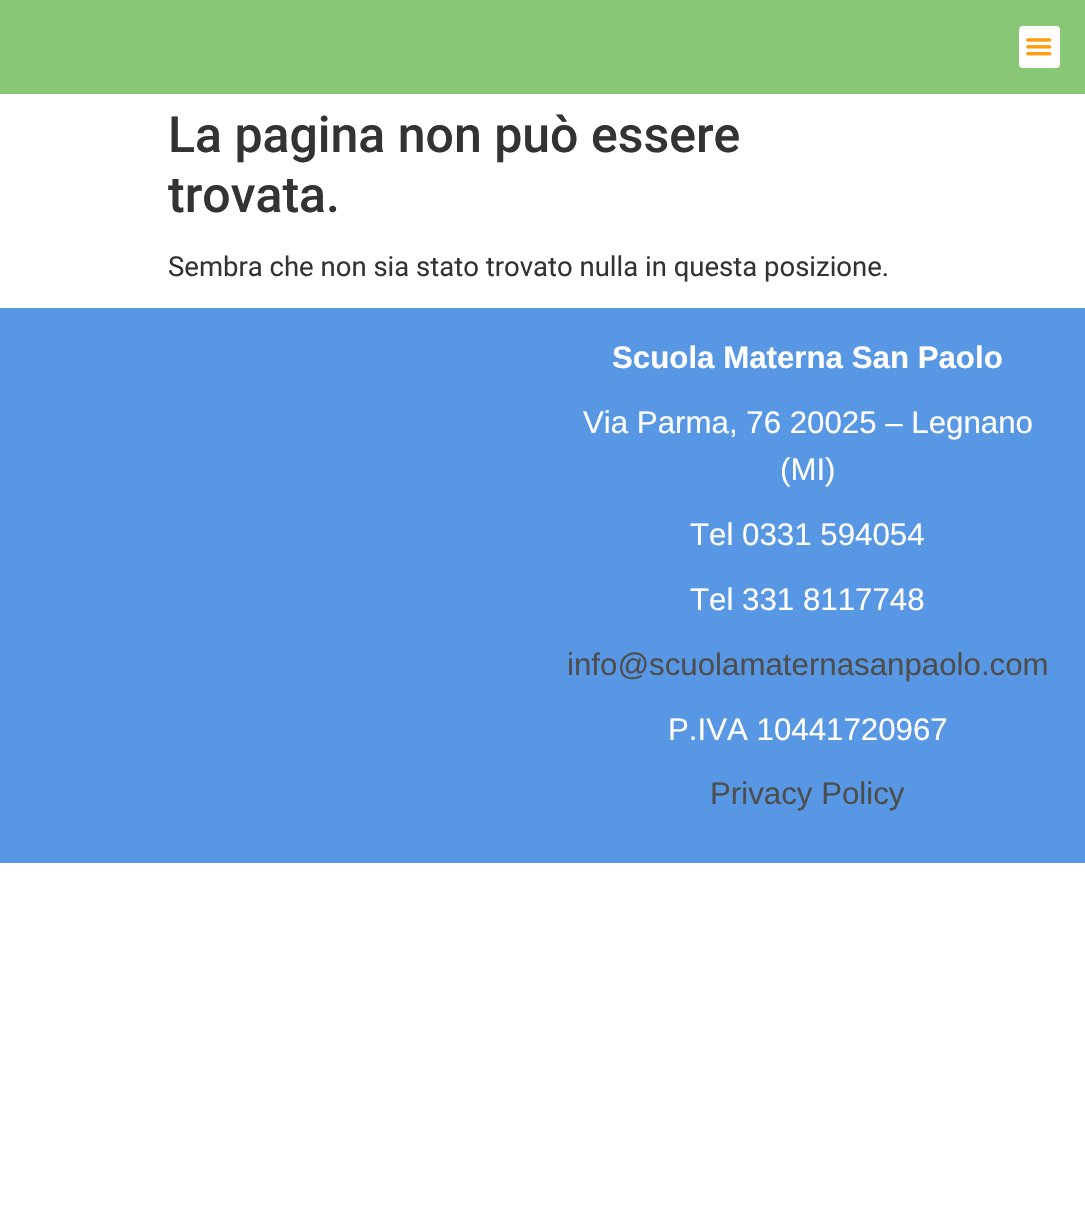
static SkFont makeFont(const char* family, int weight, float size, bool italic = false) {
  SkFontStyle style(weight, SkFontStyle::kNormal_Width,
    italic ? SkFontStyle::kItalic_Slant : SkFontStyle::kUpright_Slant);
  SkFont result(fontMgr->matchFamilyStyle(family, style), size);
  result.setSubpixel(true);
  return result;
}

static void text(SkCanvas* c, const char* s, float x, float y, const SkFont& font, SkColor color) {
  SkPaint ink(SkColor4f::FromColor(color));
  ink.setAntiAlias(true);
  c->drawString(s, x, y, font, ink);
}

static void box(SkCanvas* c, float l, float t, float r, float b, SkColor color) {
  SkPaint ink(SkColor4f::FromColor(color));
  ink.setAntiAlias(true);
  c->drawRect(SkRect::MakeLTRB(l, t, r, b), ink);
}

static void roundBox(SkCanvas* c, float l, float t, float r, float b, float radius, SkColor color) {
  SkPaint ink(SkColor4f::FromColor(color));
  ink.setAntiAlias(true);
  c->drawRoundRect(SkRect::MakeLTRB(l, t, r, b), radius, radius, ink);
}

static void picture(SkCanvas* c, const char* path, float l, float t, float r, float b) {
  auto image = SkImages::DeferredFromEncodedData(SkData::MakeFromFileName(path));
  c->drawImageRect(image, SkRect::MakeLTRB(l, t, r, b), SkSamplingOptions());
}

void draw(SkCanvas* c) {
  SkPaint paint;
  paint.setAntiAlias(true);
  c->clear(0xffffffff);
  box(c, 0, 0, 1085, 94, 0xff87c775);
  roundBox(c, 1019, 26, 1060, 68, 4, 0xffffffff);
  picture(c, "img_01.png", 1026, 38, 1052, 56);
  SkFont face1 = makeFont("Roboto", 500, 50);
  text(c, "La pagina non può essere", 168, 152, face1, 0xff333333);
  text(c, "trovata.", 168, 212, face1, 0xff333333);
  SkFont face2 = makeFont("Roboto", 400, 27.5f);
  text(c, "Sembra che non sia stato trovato nulla in questa posizione.", 168, 276, face2, 0xff333333);
  box(c, 0, 308, 1085, 863, 0xff5797e4);
  SkFont face3 = makeFont("Liberation Sans", 700, 31.25f);
  text(c, "Scuola Materna San Paolo", 612, 368, face3, 0xffffffff);
  SkFont face4 = makeFont("Liberation Sans", 400, 31.25f);
  text(c, "Via Parma, 76 20025 – Legnano", 583, 433, face4, 0xffffffff);
  text(c, "(MI)", 780, 480, face4, 0xffffffff);
  text(c, "Tel 0331 594054", 690, 545, face4, 0xffffffff);
  text(c, "Tel 331 8117748", 690, 610, face4, 0xffffffff);
  text(c, "info@scuolamaternasanpaolo.com", 567, 675, face4, 0xff4d4d4d);
  text(c, "P.IVA 10441720967", 668, 740, face4, 0xffffffff);
  text(c, "Privacy Policy", 710, 804, face4, 0xff4d4d4d);
}
